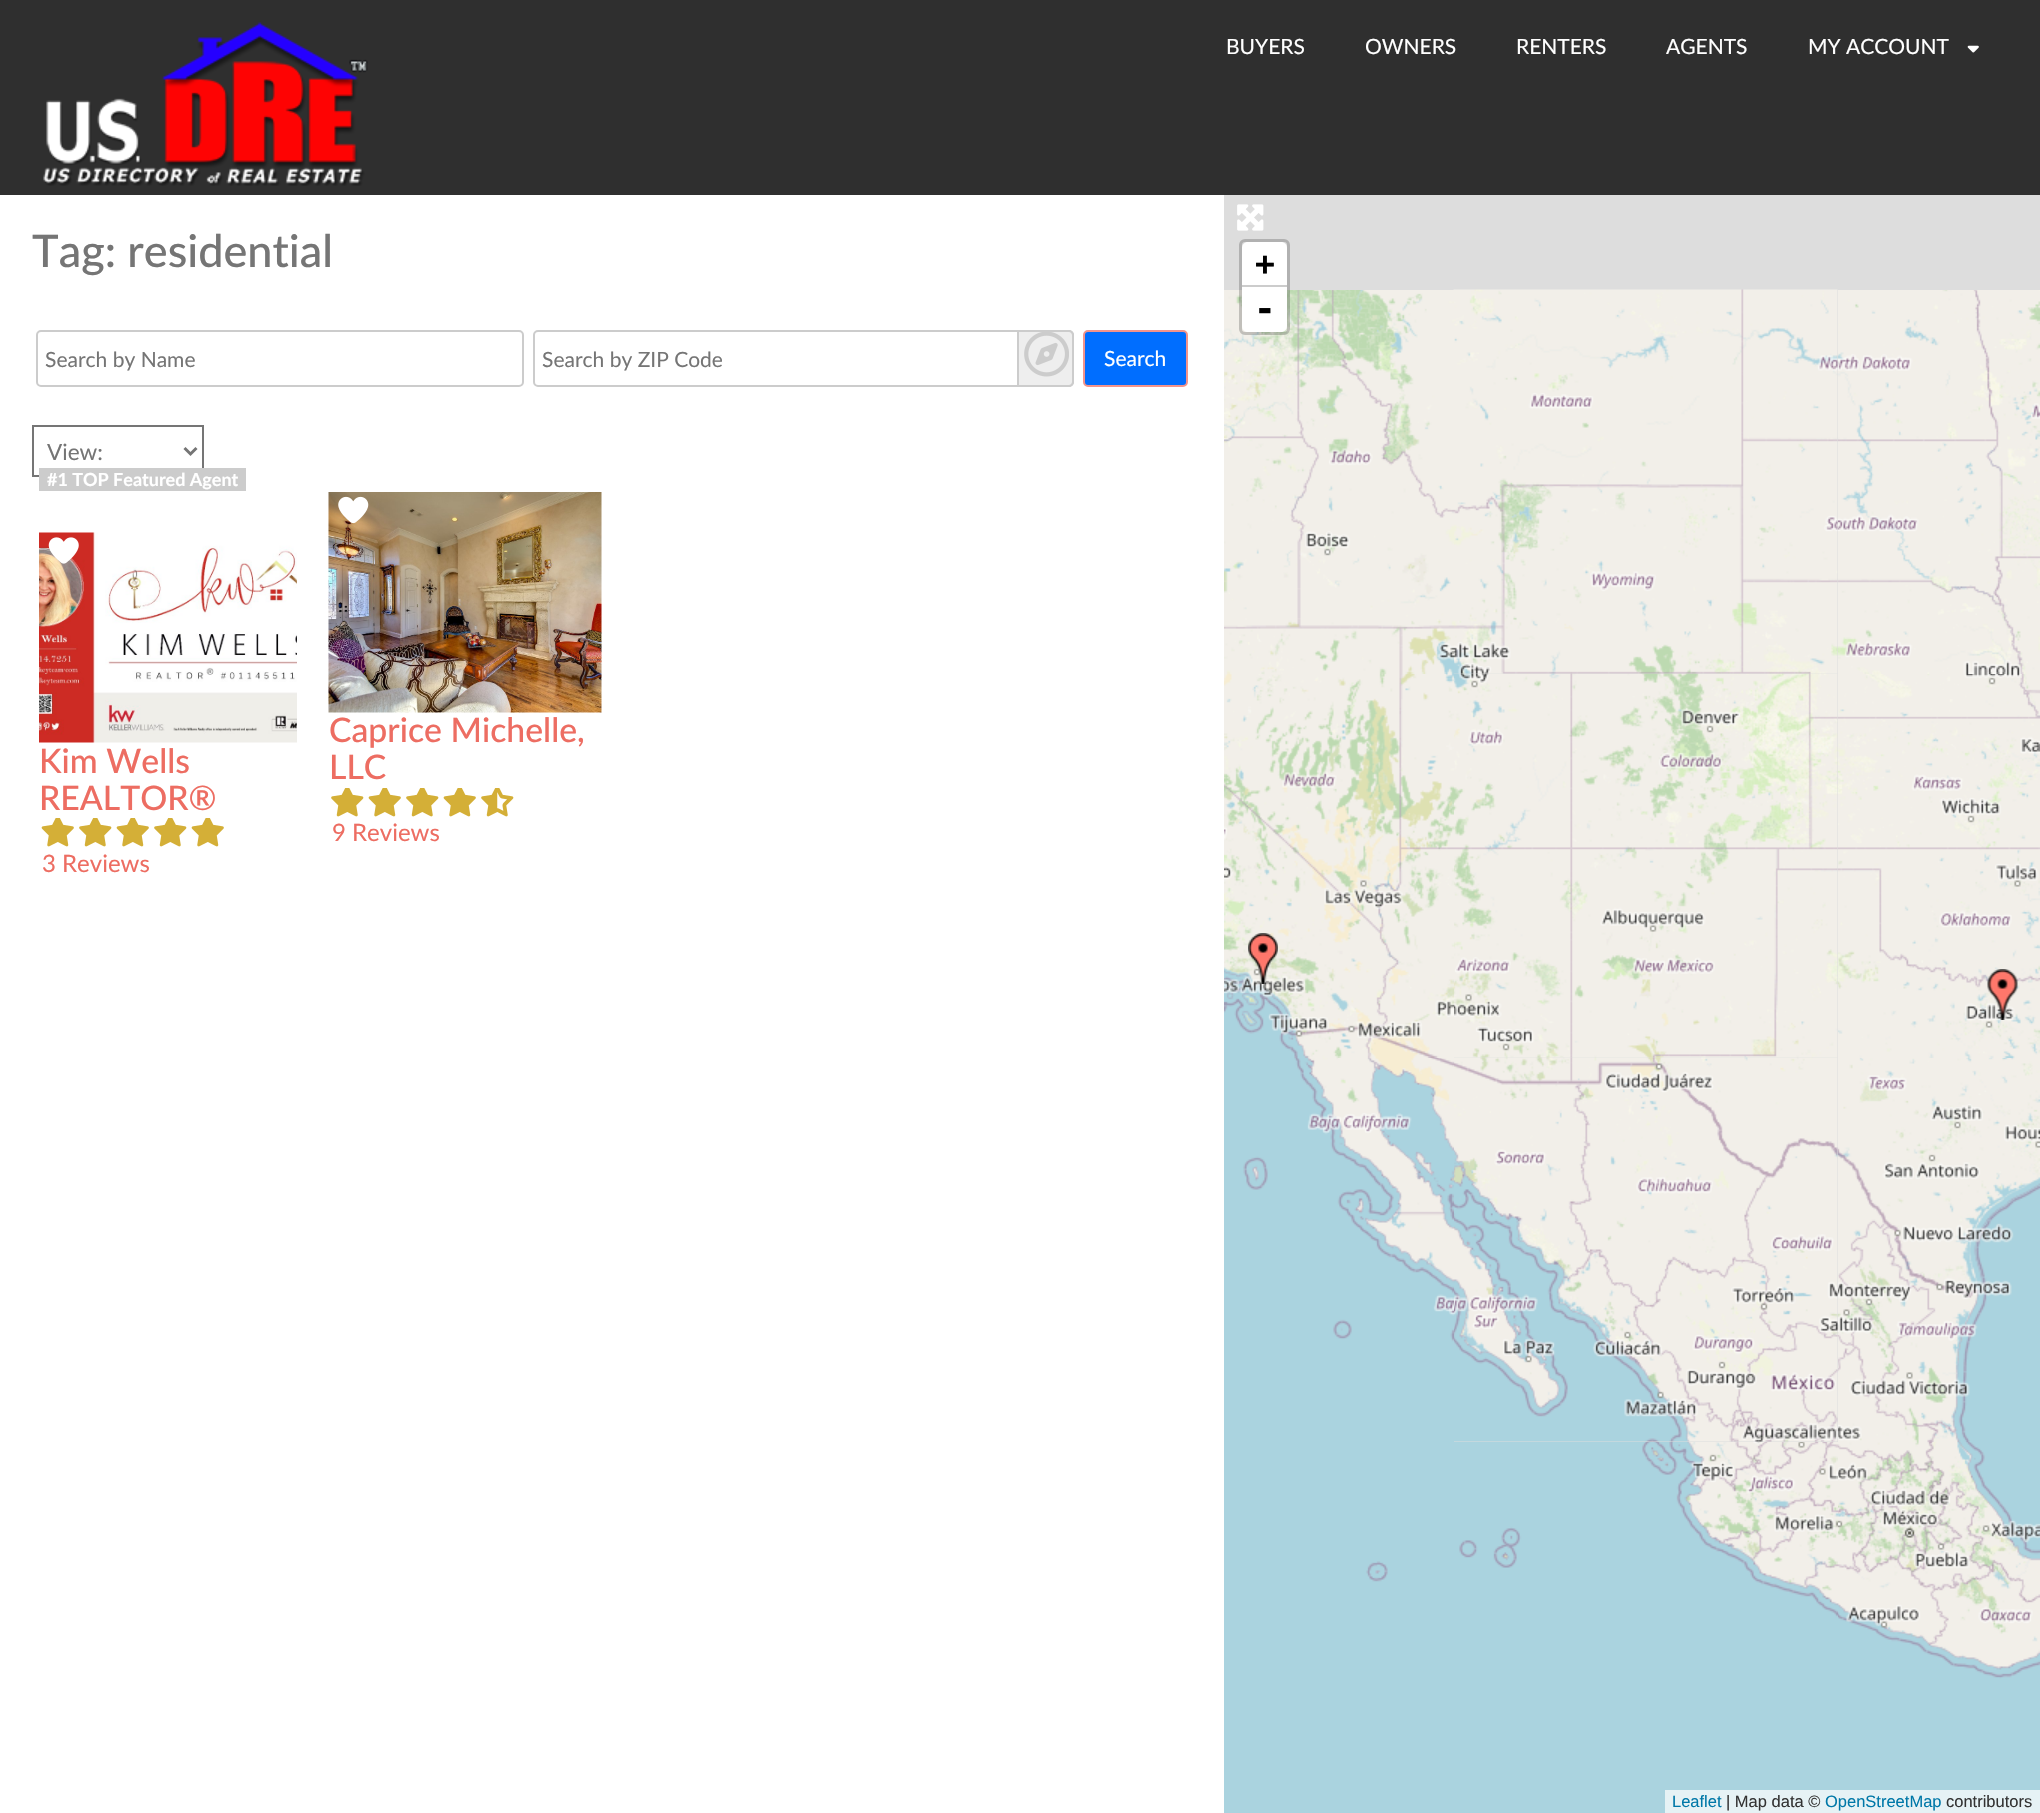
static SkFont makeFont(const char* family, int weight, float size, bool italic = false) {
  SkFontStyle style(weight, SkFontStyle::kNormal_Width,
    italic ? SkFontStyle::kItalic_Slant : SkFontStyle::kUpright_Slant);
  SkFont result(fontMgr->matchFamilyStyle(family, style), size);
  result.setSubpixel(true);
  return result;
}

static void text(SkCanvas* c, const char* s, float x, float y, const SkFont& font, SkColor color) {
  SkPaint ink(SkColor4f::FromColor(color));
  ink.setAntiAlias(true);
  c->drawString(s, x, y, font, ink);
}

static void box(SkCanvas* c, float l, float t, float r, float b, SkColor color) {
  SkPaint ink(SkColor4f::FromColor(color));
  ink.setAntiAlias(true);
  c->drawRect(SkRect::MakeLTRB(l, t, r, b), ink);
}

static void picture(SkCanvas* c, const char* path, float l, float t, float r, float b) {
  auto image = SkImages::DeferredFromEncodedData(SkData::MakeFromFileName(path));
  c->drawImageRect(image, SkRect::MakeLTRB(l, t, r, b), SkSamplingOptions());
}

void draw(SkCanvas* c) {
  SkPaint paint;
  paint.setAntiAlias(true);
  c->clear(0xffffffff);
  box(c, 0, 0, 2040, 195, 0xff2f2f2f);
  picture(c, "img_01.png", 43, 22, 368, 186);
  SkFont face1 = makeFont("Lato", 400, 21);
  text(c, "BUYERS", 1226, 54, face1, 0xffffffff);
  text(c, "OWNERS", 1365, 54, face1, 0xffffffff);
  text(c, "RENTERS", 1516, 54, face1, 0xffffffff);
  text(c, "AGENTS", 1666, 54, face1, 0xffffffff);
  text(c, "MY ACCOUNT", 1808, 54, face1, 0xffffffff);
  picture(c, "img_02.png", 1967, 45, 1979, 53);
  SkFont face2 = makeFont("Lato", 500, 45);
  text(c, "Tag: residential", 32, 267, face2, 0xff757575);
  paint.setStyle(SkPaint::kStroke_Style);
  paint.setStrokeWidth(2);
  paint.setColor(0xffcccccc);
  c->drawRoundRect(SkRect::MakeLTRB(37, 331, 523, 386), 4, 4, paint);
  text(c, "Search by Name", 45, 367, face1, 0xff757575);
  c->drawRoundRect(SkRect::MakeLTRB(534, 331, 1073, 386), 4, 4, paint);
  text(c, "Search by ZIP Code", 542, 367, face1, 0xff757575);
  paint.setStyle(SkPaint::kFill_Style);
  paint.setColor(0xffeeeeee);
  c->drawPath(SkPathBuilder().moveTo(1018, 331).lineTo(1069, 331).cubicTo(1071, 331, 1073, 333, 1073, 335).lineTo(1073, 382).cubicTo(1073, 384, 1071, 386, 1069, 386).lineTo(1018, 386).close().detach(), paint);
  paint.setStyle(SkPaint::kStroke_Style);
  paint.setColor(0xffcccccc);
  c->drawPath(SkPathBuilder().moveTo(1018, 331).lineTo(1069, 331).cubicTo(1071, 331, 1073, 333, 1073, 335).lineTo(1073, 382).cubicTo(1073, 384, 1071, 386, 1069, 386).lineTo(1018, 386).close().detach(), paint);
  picture(c, "img_03.png", 1024, 332, 1069, 377);
  paint.setStyle(SkPaint::kFill_Style);
  paint.setColor(0xff006eff);
  c->drawRoundRect(SkRect::MakeLTRB(1084, 331, 1187, 386), 4, 4, paint);
  paint.setStyle(SkPaint::kStroke_Style);
  paint.setColor(0xfff2938b);
  c->drawRoundRect(SkRect::MakeLTRB(1084, 331, 1187, 386), 4, 4, paint);
  text(c, "Search", 1104, 366, face1, 0xffffffff);
  paint.setColor(0xff757575);
  c->drawRect(SkRect::MakeLTRB(33, 426, 203, 476), paint);
  paint.setStrokeWidth(3);
  c->drawPath(SkPathBuilder().moveTo(184.5f, 448).lineTo(190.5f, 454).lineTo(196.5f, 448).detach(), paint);
  SkFont face3 = makeFont("Lato", 400, 22.5f);
  text(c, "View:", 47, 460, face3, 0xff757575);
  box(c, 39, 468, 246, 491, 0xffcccccc);
  SkFont face4 = makeFont("Lato", 700, 18);
  text(c, "#1 TOP Featured Agent", 47, 486, face4, 0xffffffff);
  picture(c, "img_04.png", 39, 532, 297, 743);
  picture(c, "img_05.png", 48, 537, 79, 564);
  SkFont face5 = makeFont("Lato", 500, 33.75f);
  text(c, "Kim Wells", 39, 773, face5, 0xffed6d62);
  text(c, "REALTOR®", 39, 810, face5, 0xffed6d62);
  picture(c, "img_06.png", 41, 818, 74, 847);
  picture(c, "img_07.png", 79, 818, 112, 847);
  picture(c, "img_06.png", 116, 818, 149, 847);
  picture(c, "img_07.png", 154, 818, 187, 847);
  picture(c, "img_06.png", 191, 818, 224, 847);
  SkFont face6 = makeFont("Lato", 400, 24);
  text(c, "3 Reviews", 42, 872, face6, 0xffed6d62);
  picture(c, "img_08.png", 328, 492, 602, 713);
  picture(c, "img_09.png", 338, 496, 369, 524);
  text(c, "Caprice Michelle,", 329, 742, face5, 0xffed6d62);
  text(c, "LLC", 329, 779, face5, 0xffed6d62);
  picture(c, "img_07.png", 331, 788, 364, 817);
  picture(c, "img_06.png", 368, 788, 401, 817);
  picture(c, "img_07.png", 406, 788, 439, 817);
  picture(c, "img_06.png", 443, 788, 476, 817);
  picture(c, "img_10.png", 481, 788, 514, 817);
  text(c, "9 Reviews", 332, 841, face6, 0xffed6d62);
  box(c, 1224, 195, 2040, 1442, 0xffdddddd);
  picture(c, "img_11.png", 1237, 204, 1264, 231);
  picture(c, "img_16.png", 1454, 673, 1838, 1058);
  picture(c, "img_13.png", 1453, 289, 1838, 674);
  picture(c, "img_12.png", 1224, 290, 1454, 674);
  paint.setColor(0x33000000);
  c->drawRoundRect(SkRect::MakeLTRB(1240.5f, 240.5f, 1288.5f, 333.5f), 4.5f, 4.5f, paint);
  paint.setStyle(SkPaint::kFill_Style);
  paint.setColor(0xffffffff);
  c->drawPath(SkPathBuilder().moveTo(1248, 242).lineTo(1281, 242).cubicTo(1284.5f, 242, 1287, 244.5f, 1287, 248).lineTo(1287, 287).lineTo(1242, 287).lineTo(1242, 248).cubicTo(1242, 244.5f, 1244.5f, 242, 1248, 242).close().detach(), paint);
  box(c, 1242, 285, 1287, 287, 0xffcccccc);
  SkFont face7 = makeFont("DejaVu Sans Mono", 700, 33);
  text(c, "+", 1255, 275, face7, 0xff000000);
  c->drawPath(SkPathBuilder().moveTo(1242, 287).lineTo(1287, 287).lineTo(1287, 326).cubicTo(1287, 329.5f, 1284.5f, 332, 1281, 332).lineTo(1248, 332).cubicTo(1244.5f, 332, 1242, 329.5f, 1242, 326).close().detach(), paint);
  SkFont face8 = makeFont("DejaVu Sans Mono", 700, 36);
  text(c, "-", 1254, 321, face8, 0xff000000);
  picture(c, "img_22.png", 1454, 1442, 1838, 1813);
  box(c, 1665, 1790, 2040, 1813, 0xffe6f2f5);
  SkFont face9 = makeFont("Liberation Sans", 400, 16.5f);
  text(c, "Leaflet", 1672, 1807, face9, 0xff0078a8);
  text(c, "| Map data ©", 1726, 1807, face9, 0xff333333);
  text(c, "OpenStreetMap", 1825, 1807, face9, 0xff0078a8);
  text(c, "contributors", 1946, 1807, face9, 0xff333333);
  picture(c, "img_14.png", 1838, 290, 2040, 674);
  picture(c, "img_15.png", 1224, 674, 1454, 1058);
  picture(c, "img_17.png", 1838, 674, 2040, 1058);
  picture(c, "img_18.png", 1224, 1058, 1454, 1442);
  picture(c, "img_19.png", 1454, 1057, 1838, 1442);
  picture(c, "img_20.png", 1838, 1058, 2040, 1442);
  picture(c, "img_21.png", 1224, 1442, 1454, 1813);
  picture(c, "img_23.png", 1838, 1442, 2040, 1790);
  picture(c, "img_24.png", 1248, 933, 1278, 984);
  picture(c, "img_25.png", 1987, 969, 2018, 1020);
}
